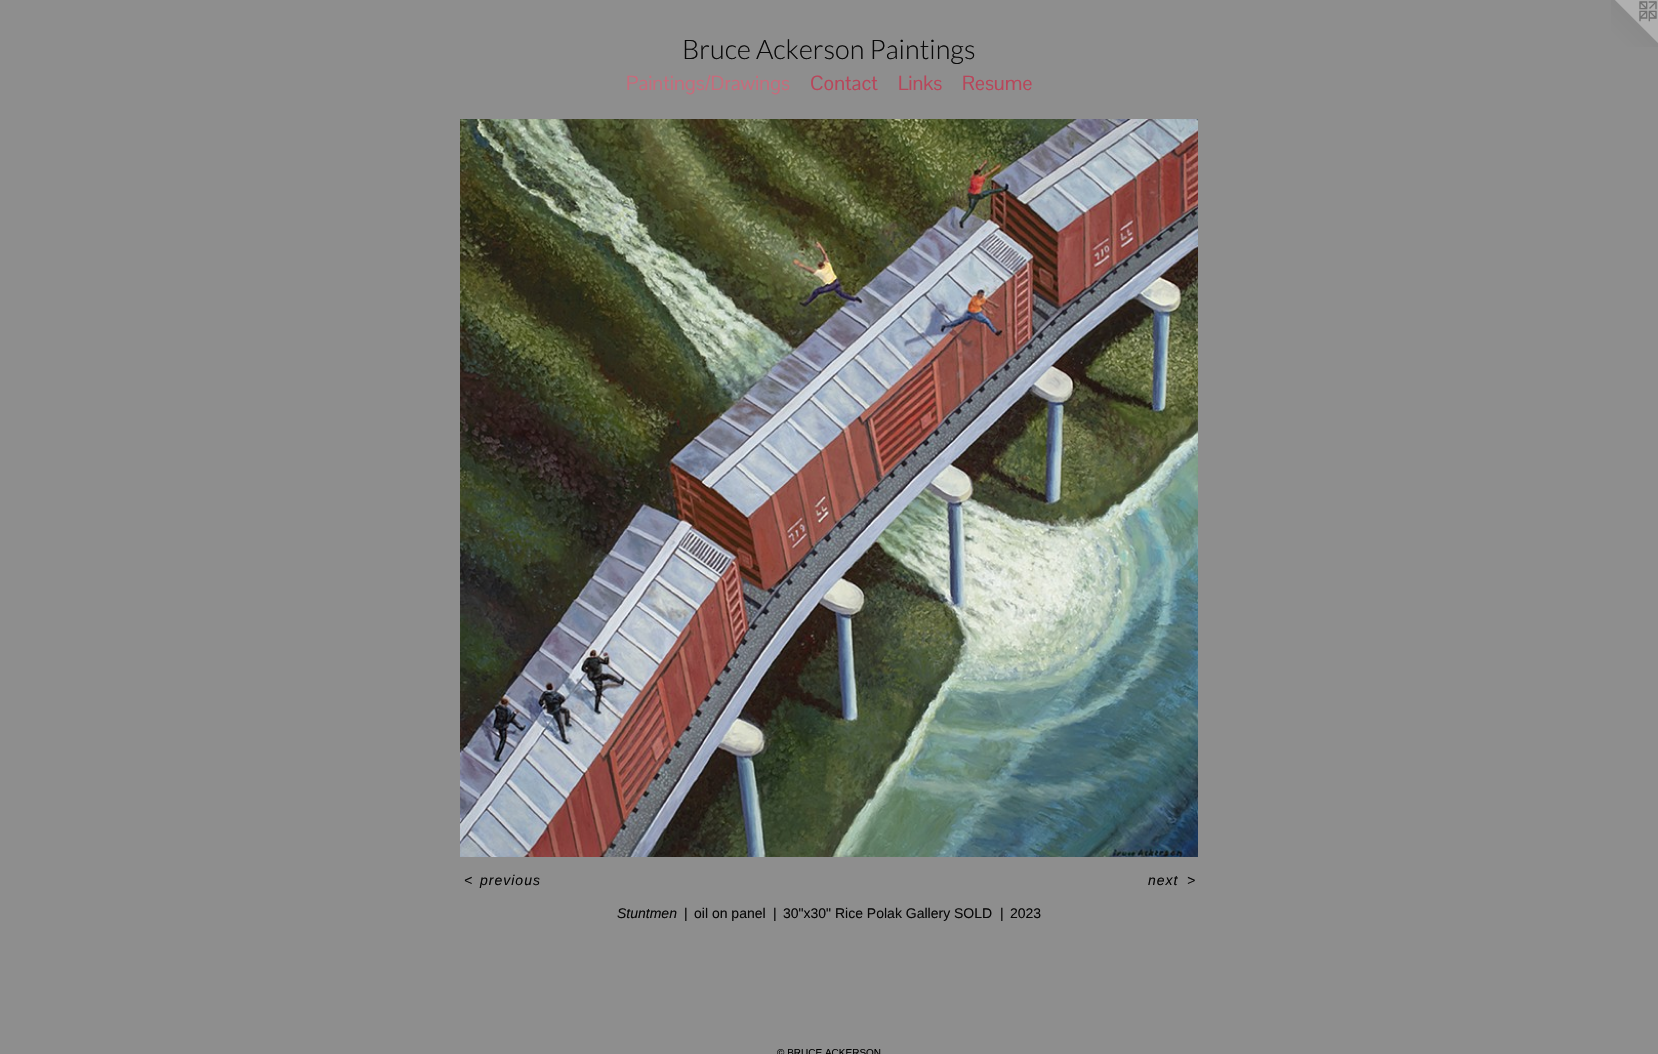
static SkFont makeFont(const char* family, int weight, float size, bool italic = false) {
  SkFontStyle style(weight, SkFontStyle::kNormal_Width,
    italic ? SkFontStyle::kItalic_Slant : SkFontStyle::kUpright_Slant);
  SkFont result(fontMgr->matchFamilyStyle(family, style), size);
  result.setSubpixel(true);
  return result;
}

static void text(SkCanvas* c, const char* s, float x, float y, const SkFont& font, SkColor color) {
  SkPaint ink(SkColor4f::FromColor(color));
  ink.setAntiAlias(true);
  c->drawString(s, x, y, font, ink);
}

static void spacedText(SkCanvas* c, const char* s, float x, float y, const SkFont& font, const SkPaint& ink, float letter, float word) {
  std::vector<SkGlyphID> glyphs(font.countText(s, strlen(s), SkTextEncoding::kUTF8));
  std::vector<float> xs(glyphs.size());
  font.textToGlyphs(s, strlen(s), SkTextEncoding::kUTF8, glyphs);
  font.getXPos(glyphs, xs, x);
  float extra = 0;
  for (size_t i = 0; i < glyphs.size(); i++) {
    xs[i] += extra;
    extra += letter + word * (glyphs[i] == font.unicharToGlyph(' '));
  }
  c->drawTextBlob(SkTextBlob::MakeFromPosHGlyphs(glyphs, xs, y, font), 0, 0, ink);
}

static void picture(SkCanvas* c, const char* path, float l, float t, float r, float b) {
  auto image = SkImages::DeferredFromEncodedData(SkData::MakeFromFileName(path));
  c->drawImageRect(image, SkRect::MakeLTRB(l, t, r, b), SkSamplingOptions());
}

void draw(SkCanvas* c) {
  SkPaint paint;
  paint.setAntiAlias(true);
  c->clear(0xff8e8e8e);
  picture(c, "img_01.png", 1611, 0, 1658, 47);
  SkFont face1 = makeFont("Lato", 300, 27);
  text(c, "Bruce Ackerson Paintings", 682, 59, face1, 0xff080808);
  SkFont face2 = makeFont("Pontano Sans", 400, 20);
  text(c, "Paintings/Drawings", 626, 90, face2, 0xffc66c7c);
  text(c, "Contact", 810, 90, face2, 0xffb8475b);
  text(c, "Links", 898, 90, face2, 0xffb8475b);
  text(c, "Resume", 962, 90, face2, 0xffb8475b);
  picture(c, "img_02.png", 460, 119, 1198, 857);
  SkFont face3 = makeFont("Liberation Sans", 400, 14, true);
  paint.setColor(0xff080808);
  spacedText(c, "<", 464, 885, face3, paint, 1, 0);
  spacedText(c, "previous", 480, 885, face3, paint, 1, 0);
  spacedText(c, "next", 1148, 885, face3, paint, 1, 0);
  spacedText(c, ">", 1187, 885, face3, paint, 1, 0);
  text(c, "Stuntmen", 617, 918, face3, 0xff080808);
  SkFont face4 = makeFont("Liberation Sans", 400, 14);
  text(c, "|", 684, 918, face4, 0xff080808);
  text(c, "oil on panel", 694, 918, face4, 0xff080808);
  text(c, "|", 773, 918, face4, 0xff080808);
  text(c, "30\"x30\" Rice Polak Gallery SOLD", 783, 918, face4, 0xff080808);
  text(c, "|", 1000, 918, face4, 0xff080808);
  text(c, "2023", 1010, 918, face4, 0xff080808);
  SkFont face5 = makeFont("Liberation Sans", 400, 10);
  text(c, "© BRUCE ACKERSON", 777, 1056, face5, 0xff000000);
}
